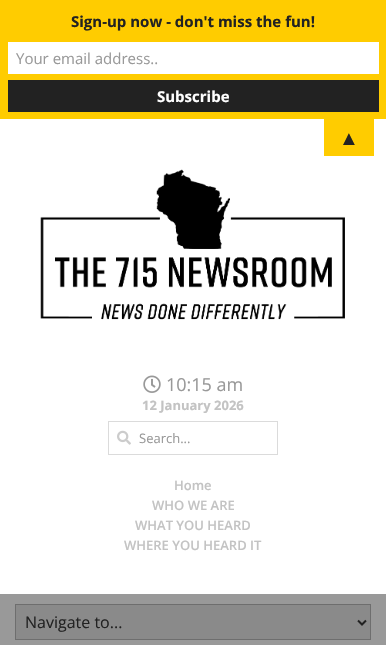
static SkFont makeFont(const char* family, int weight, float size, bool italic = false) {
  SkFontStyle style(weight, SkFontStyle::kNormal_Width,
    italic ? SkFontStyle::kItalic_Slant : SkFontStyle::kUpright_Slant);
  SkFont result(fontMgr->matchFamilyStyle(family, style), size);
  result.setSubpixel(true);
  return result;
}

static void text(SkCanvas* c, const char* s, float x, float y, const SkFont& font, SkColor color) {
  SkPaint ink(SkColor4f::FromColor(color));
  ink.setAntiAlias(true);
  c->drawString(s, x, y, font, ink);
}

static void box(SkCanvas* c, float l, float t, float r, float b, SkColor color) {
  SkPaint ink(SkColor4f::FromColor(color));
  ink.setAntiAlias(true);
  c->drawRect(SkRect::MakeLTRB(l, t, r, b), ink);
}

static void picture(SkCanvas* c, const char* path, float l, float t, float r, float b) {
  auto image = SkImages::DeferredFromEncodedData(SkData::MakeFromFileName(path));
  c->drawImageRect(image, SkRect::MakeLTRB(l, t, r, b), SkSamplingOptions());
}

void draw(SkCanvas* c) {
  SkPaint paint;
  paint.setAntiAlias(true);
  c->clear(0xffffffff);
  box(c, 0, 0, 386, 119, 0xffffcc00);
  SkFont face1 = makeFont("Open Sans", 700, 15);
  text(c, "Sign-up now - don't miss the fun!", 71, 27, face1, 0xff222222);
  box(c, 8, 42, 379, 74, 0xffffffff);
  SkFont face2 = makeFont("Open Sans", 400, 15);
  text(c, "Your email address..", 16, 64, face2, 0xff999999);
  box(c, 8, 80, 379, 112, 0xff222222);
  text(c, "Subscribe", 157, 102, face1, 0xffffffff);
  box(c, 324, 119, 374, 156, 0xffffcc00);
  SkFont face3 = makeFont("Liberation Sans", 400, 20);
  text(c, "▲", 339, 145, face3, 0xff222222);
  picture(c, "img_01.png", 40, 169, 345, 320);
  picture(c, "img_02.png", 143, 375, 161, 393);
  SkFont face4 = makeFont("Open Sans", 400, 18);
  text(c, "10:15 am", 166, 391, face4, 0xff999999);
  SkFont face5 = makeFont("Open Sans", 700, 13);
  text(c, "12 January 2026", 142, 410, face5, 0xffc3c3c3);
  paint.setStyle(SkPaint::kStroke_Style);
  paint.setStrokeWidth(1);
  paint.setColor(0xffdbdbdb);
  c->drawRect(SkRect::MakeLTRB(108.5f, 421.5f, 277.5f, 454.5f), paint);
  picture(c, "img_03.png", 117, 430, 131, 445);
  SkFont face6 = makeFont("Open Sans", 400, 13);
  text(c, "Search...", 139, 443, face6, 0xff999999);
  SkFont face7 = makeFont("Open Sans", 600, 13);
  text(c, "Home", 174, 490, face7, 0xffc3c3c3);
  text(c, "WHO WE ARE", 152, 510, face7, 0xffc3c3c3);
  text(c, "WHAT YOU HEARD", 135, 530, face7, 0xffc3c3c3);
  text(c, "WHERE YOU HEARD IT", 124, 550, face7, 0xffc3c3c3);
  box(c, 0, 594, 386, 645, 0xff999999);
  paint.setStyle(SkPaint::kFill_Style);
  paint.setColor(0xff8a8a8a);
  c->drawRect(SkRect::MakeLTRB(15.5f, 604.5f, 370.5f, 639.5f), paint);
  paint.setStyle(SkPaint::kStroke_Style);
  paint.setColor(0xff6e6e6e);
  c->drawRect(SkRect::MakeLTRB(15.5f, 604.5f, 370.5f, 639.5f), paint);
  paint.setStrokeWidth(2);
  paint.setColor(0xff222222);
  c->drawPath(SkPathBuilder().moveTo(358, 620.5f).lineTo(362, 624.5f).lineTo(366, 620.5f).detach(), paint);
  SkFont face8 = makeFont("Open Sans", 400, 16);
  text(c, "Navigate to...", 25, 628, face8, 0xff222222);
}
